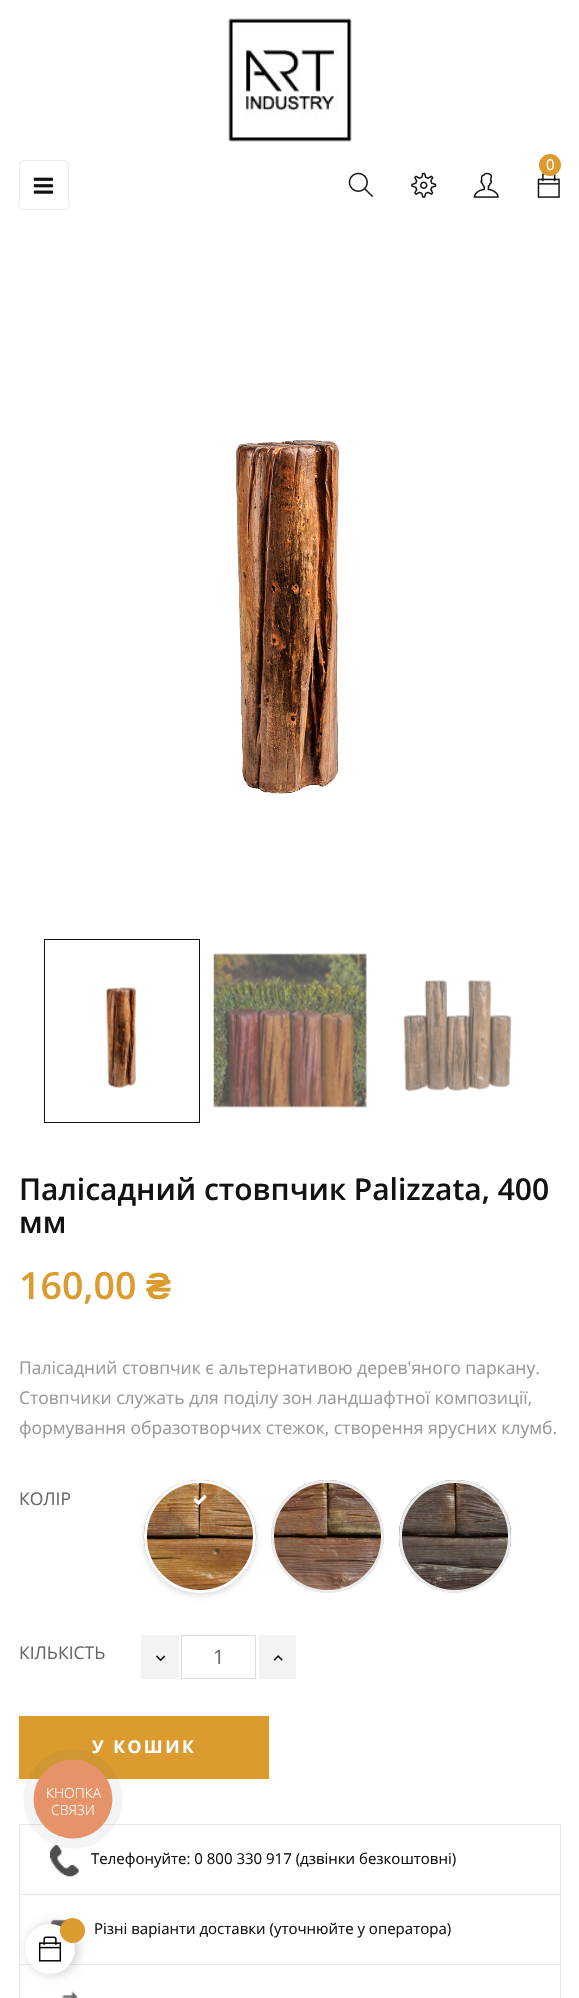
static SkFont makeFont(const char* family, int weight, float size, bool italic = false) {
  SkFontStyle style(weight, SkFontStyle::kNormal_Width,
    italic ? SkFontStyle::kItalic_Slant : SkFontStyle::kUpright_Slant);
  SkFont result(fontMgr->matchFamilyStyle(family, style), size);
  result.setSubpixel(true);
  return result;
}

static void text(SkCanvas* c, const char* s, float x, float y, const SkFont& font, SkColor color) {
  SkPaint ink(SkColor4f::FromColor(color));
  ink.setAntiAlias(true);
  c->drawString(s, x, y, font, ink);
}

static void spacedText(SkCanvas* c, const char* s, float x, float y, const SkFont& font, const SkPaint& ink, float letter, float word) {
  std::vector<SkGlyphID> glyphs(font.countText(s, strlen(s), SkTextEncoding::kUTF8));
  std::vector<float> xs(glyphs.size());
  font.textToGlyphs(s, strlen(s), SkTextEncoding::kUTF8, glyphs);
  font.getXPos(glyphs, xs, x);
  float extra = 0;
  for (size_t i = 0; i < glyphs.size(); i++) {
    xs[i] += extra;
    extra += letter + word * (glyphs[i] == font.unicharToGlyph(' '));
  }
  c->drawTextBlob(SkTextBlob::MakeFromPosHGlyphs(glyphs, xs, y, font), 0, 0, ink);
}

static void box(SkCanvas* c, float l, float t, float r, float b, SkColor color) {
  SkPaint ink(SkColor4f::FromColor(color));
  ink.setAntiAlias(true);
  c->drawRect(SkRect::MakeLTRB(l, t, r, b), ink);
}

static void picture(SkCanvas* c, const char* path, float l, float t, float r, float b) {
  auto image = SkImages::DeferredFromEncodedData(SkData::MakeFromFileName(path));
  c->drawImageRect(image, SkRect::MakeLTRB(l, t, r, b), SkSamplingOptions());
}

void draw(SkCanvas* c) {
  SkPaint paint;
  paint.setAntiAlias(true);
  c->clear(0xffffffff);
  picture(c, "img_01.png", 228, 18, 352, 142);
  paint.setStyle(SkPaint::kStroke_Style);
  paint.setStrokeWidth(1);
  paint.setColor(0xffebebeb);
  c->drawRoundRect(SkRect::MakeLTRB(19.5f, 160.5f, 68.5f, 209.5f), 4.5f, 4.5f, paint);
  picture(c, "img_02.png", 33, 177, 54, 194);
  picture(c, "img_03.png", 537, 173, 560, 198);
  paint.setStyle(SkPaint::kFill_Style);
  paint.setColor(0xffdb9b2e);
  c->drawCircle(550, 165, 11, paint);
  SkFont face1 = makeFont("Open Sans", 400, 15);
  text(c, "0", 546, 170, face1, 0xffffffff);
  picture(c, "img_04.png", 348, 172, 374, 198);
  picture(c, "img_05.png", 411, 172, 437, 198);
  picture(c, "img_06.png", 473, 172, 499, 198);
  picture(c, "img_07.png", 236, 439, 340, 794);
  paint.setStyle(SkPaint::kStroke_Style);
  paint.setColor(0xff121212);
  c->drawRect(SkRect::MakeLTRB(44.5f, 939.5f, 199.5f, 1122.5f), paint);
  picture(c, "img_08.png", 105, 987, 136, 1088);
  picture(c, "img_09.png", 213, 953, 367, 1111);
  picture(c, "img_10.png", 403, 980, 512, 1092);
  SkFont face2 = makeFont("Open Sans", 600, 30);
  text(c, "Палісадний стовпчик Palizzata, 400", 19, 1200, face2, 0xff121212);
  text(c, "мм", 19, 1233, face2, 0xff121212);
  SkFont face3 = makeFont("Open Sans", 600, 37.5f);
  text(c, "160,00", 19, 1299, face3, 0xffdb9b2e);
  SkFont face4 = makeFont("Liberation Sans", 700, 37.5f);
  text(c, "₴", 146, 1299, face4, 0xffdb9b2e);
  SkFont face5 = makeFont("Open Sans", 400, 17.5f);
  text(c, "Палісадний стовпчик є альтернативою дерев'яного паркану.", 19, 1374, face5, 0xff999999);
  text(c, "Стовпчики служать для поділу зон ландшафтної композиції,", 19, 1404, face5, 0xff999999);
  text(c, "формування образотворчих стежок, створення ярусних клумб.", 19, 1434, face5, 0xff999999);
  text(c, "КОЛІР", 19, 1505, face5, 0xff666666);
  paint.setStyle(SkPaint::kFill_Style);
  paint.setColor(0x26000000);
  paint.setMaskFilter(SkMaskFilter::MakeBlur(kNormal_SkBlurStyle, 3));
  c->drawRoundRect(SkRect::MakeLTRB(144, 1483, 256, 1595), 56, 56, paint);
  paint.setMaskFilter(nullptr);
  picture(c, "img_11.png", 143, 1480, 257, 1593);
  paint.setStyle(SkPaint::kStroke_Style);
  paint.setStrokeWidth(3);
  paint.setColor(0xffffffff);
  c->drawRoundRect(SkRect::MakeLTRB(145.5f, 1481.5f, 254.5f, 1591.5f), 54.5f, 54.5f, paint);
  picture(c, "img_12.png", 193, 1495, 207, 1505);
  picture(c, "img_13.png", 271, 1480, 384, 1593);
  paint.setColor(0xffebebeb);
  c->drawCircle(327.5f, 1536.5f, 55, paint);
  picture(c, "img_14.png", 398, 1480, 512, 1593);
  c->drawRoundRect(SkRect::MakeLTRB(400.5f, 1481.5f, 509.5f, 1591.5f), 54.5f, 54.5f, paint);
  text(c, "КІЛЬКІСТЬ", 19, 1659, face5, 0xff666666);
  box(c, 141, 1635, 179, 1679, 0xfff3f3f3);
  picture(c, "img_15.png", 156, 1655, 166, 1662);
  box(c, 259, 1635, 296, 1679, 0xfff3f3f3);
  picture(c, "img_16.png", 273, 1655, 283, 1661);
  paint.setStrokeWidth(1);
  paint.setColor(0xffdddddd);
  c->drawRect(SkRect::MakeLTRB(181.5f, 1635.5f, 255.5f, 1678.5f), paint);
  SkFont face6 = makeFont("Open Sans", 400, 20);
  text(c, "1", 213, 1664, face6, 0xff666666);
  box(c, 19, 1716, 269, 1779, 0xffdb9b2e);
  SkFont face7 = makeFont("Open Sans", 700, 17.5f);
  paint.setStyle(SkPaint::kFill_Style);
  paint.setColor(0xffffffff);
  spacedText(c, "У КОШИК", 92, 1753, face7, paint, 2.5f, 0);
  paint.setStyle(SkPaint::kStroke_Style);
  paint.setColor(0xffe6e6e6);
  c->drawRect(SkRect::MakeLTRB(19.5f, 1824.5f, 560.5f, 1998.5f), paint);
  box(c, 20, 1894, 560, 1895, 0xffe6e6e6);
  picture(c, "img_17.png", 50, 1845, 79, 1877);
  text(c, "Телефонуйте: 0 800 330 917 (дзвінки безкоштовні)", 91, 1864, face1, 0xff121212);
  box(c, 20, 1964, 560, 1965, 0xffe6e6e6);
  picture(c, "img_18.png", 51, 1919, 68, 1927);
  text(c, "Різні варіанти доставки (уточнюйте у оператора)", 94, 1934, face1, 0xff121212);
  picture(c, "img_19.png", 62, 1991, 78, 1998);
  paint.setStyle(SkPaint::kFill_Style);
  paint.setColor(0x0f2a405d);
  c->drawCircle(73, 1799, 49.5f, paint);
  paint.setColor(0xffe6936a);
  c->drawCircle(73, 1799, 39.5f, paint);
  SkFont face8 = makeFont("Open Sans", 300, 14);
  text(c, "КНОПКА", 46, 1798, face8, 0xffffffff);
  text(c, "СВЯЗИ", 51, 1815, face8, 0xffffffff);
  paint.setColor(0x33000000);
  paint.setMaskFilter(SkMaskFilter::MakeBlur(kNormal_SkBlurStyle, 6));
  c->drawRoundRect(SkRect::MakeLTRB(28, 1924, 78, 1974), 25, 25, paint);
  paint.setMaskFilter(nullptr);
  paint.setColor(0xffffffff);
  c->drawCircle(50, 1949, 25, paint);
  picture(c, "img_20.png", 38, 1936, 62, 1962);
  paint.setColor(0xffdb9b2e);
  c->drawCircle(72.5f, 1930.5f, 12.5f, paint);
}
